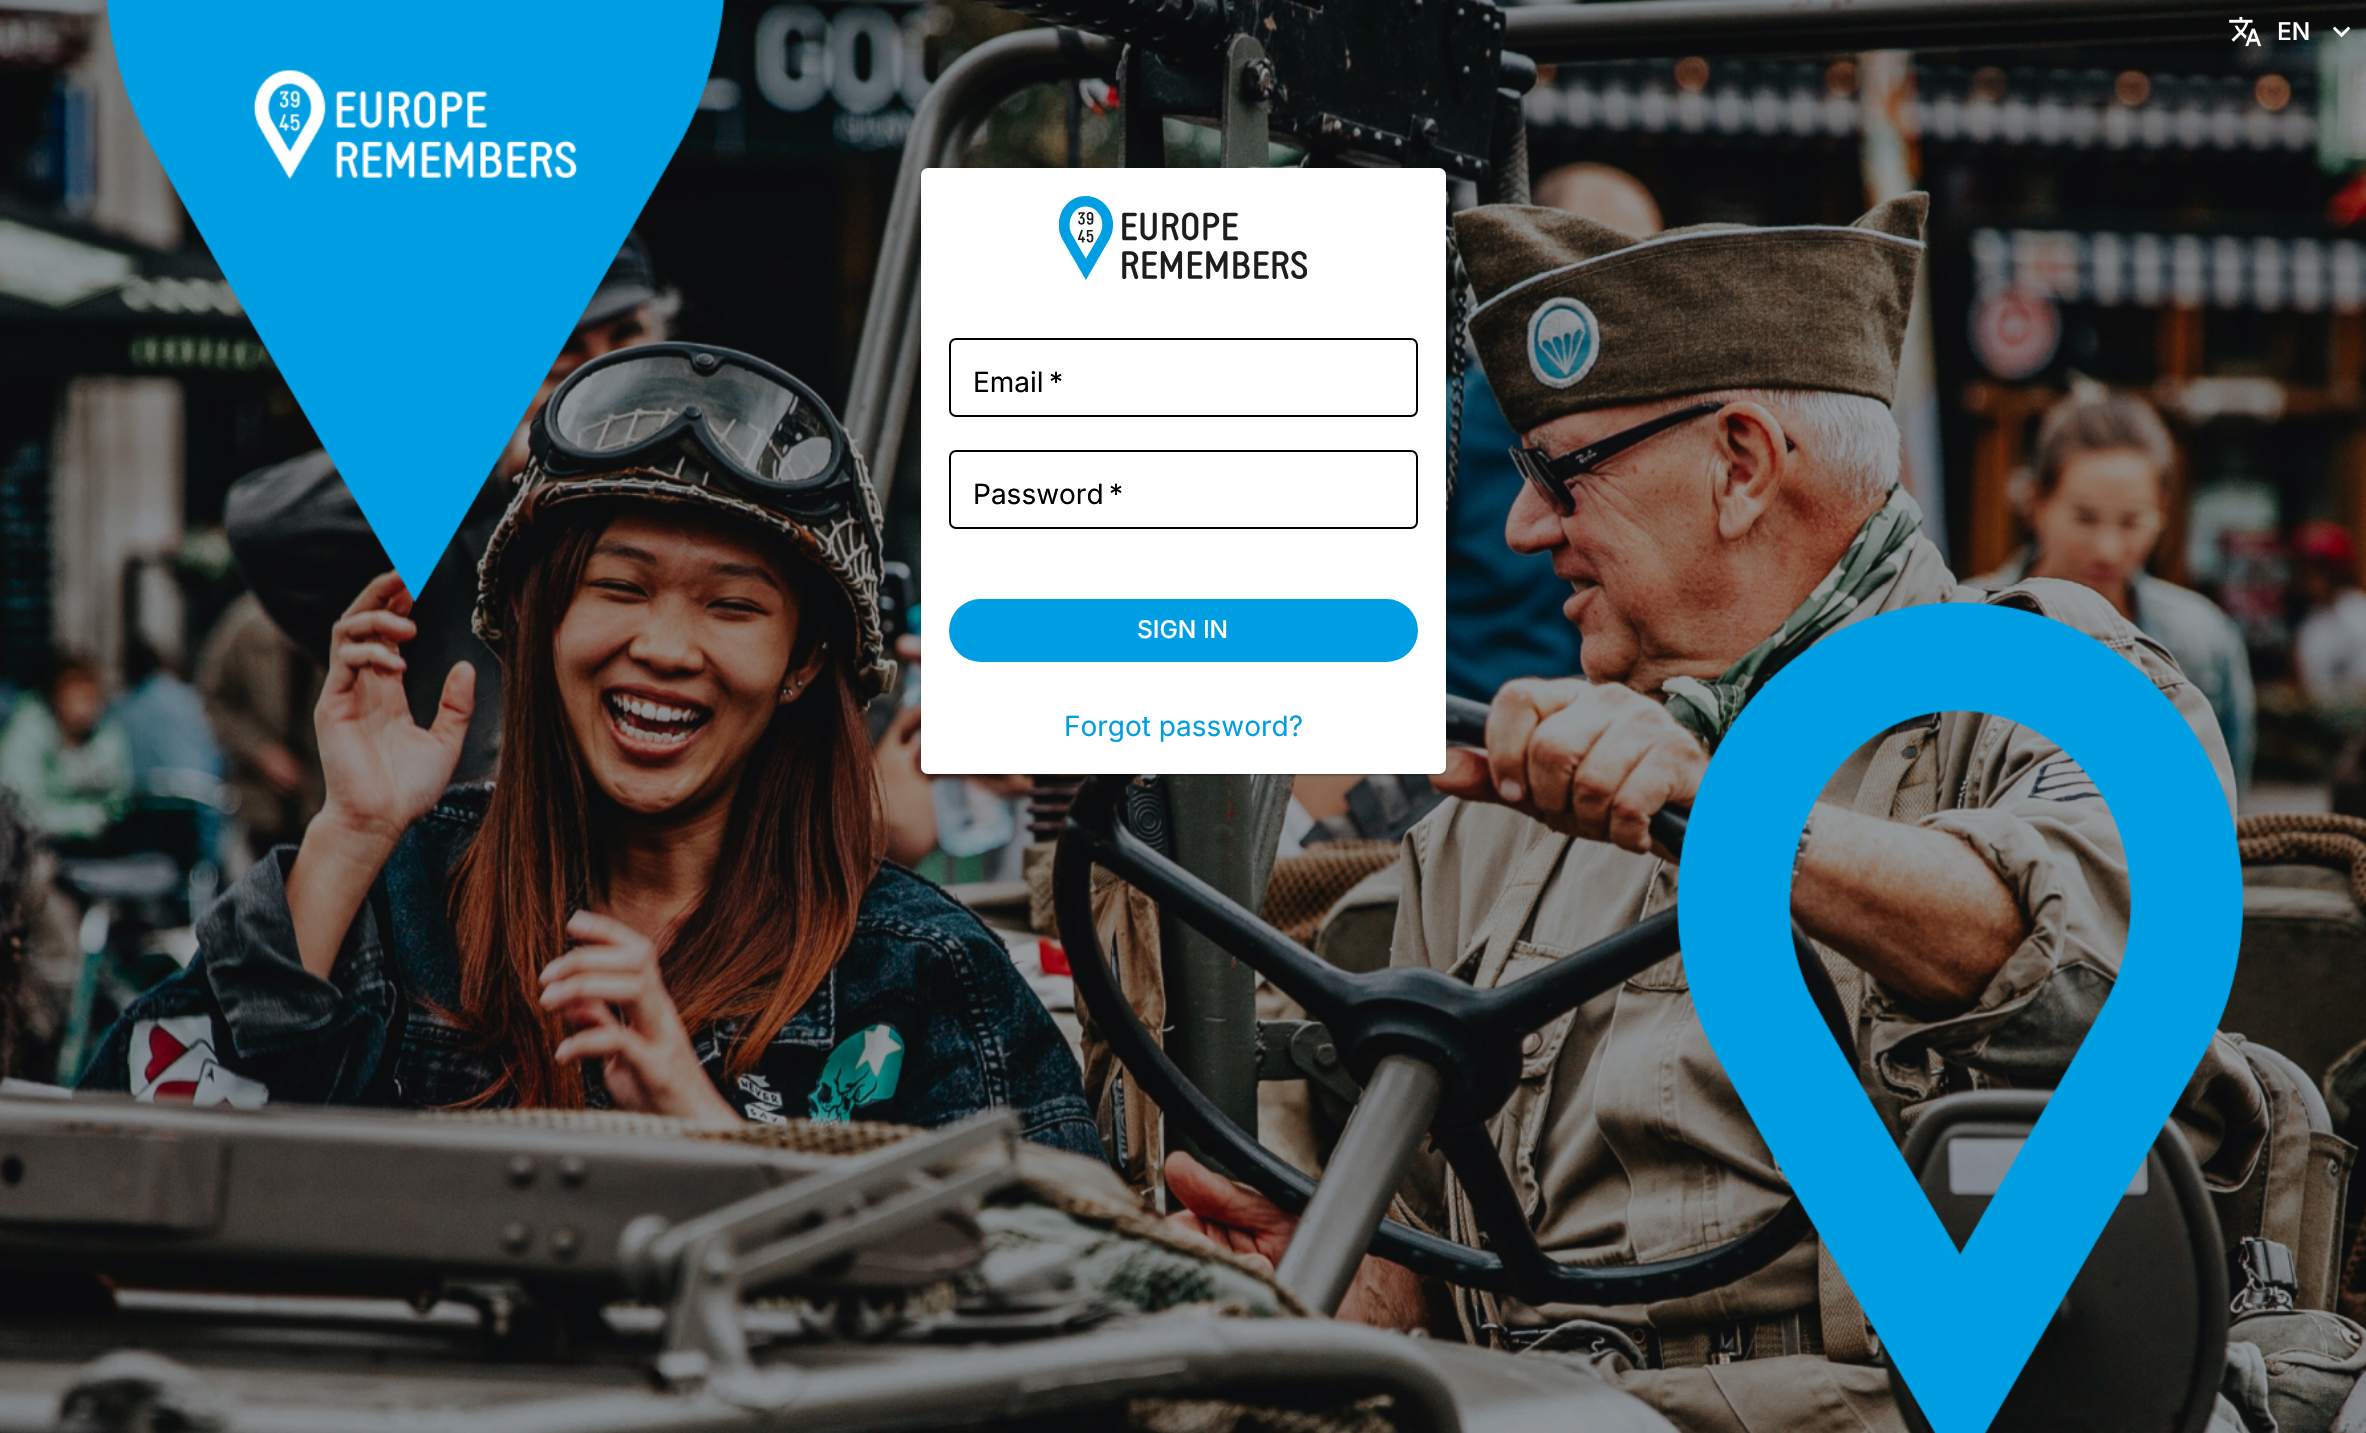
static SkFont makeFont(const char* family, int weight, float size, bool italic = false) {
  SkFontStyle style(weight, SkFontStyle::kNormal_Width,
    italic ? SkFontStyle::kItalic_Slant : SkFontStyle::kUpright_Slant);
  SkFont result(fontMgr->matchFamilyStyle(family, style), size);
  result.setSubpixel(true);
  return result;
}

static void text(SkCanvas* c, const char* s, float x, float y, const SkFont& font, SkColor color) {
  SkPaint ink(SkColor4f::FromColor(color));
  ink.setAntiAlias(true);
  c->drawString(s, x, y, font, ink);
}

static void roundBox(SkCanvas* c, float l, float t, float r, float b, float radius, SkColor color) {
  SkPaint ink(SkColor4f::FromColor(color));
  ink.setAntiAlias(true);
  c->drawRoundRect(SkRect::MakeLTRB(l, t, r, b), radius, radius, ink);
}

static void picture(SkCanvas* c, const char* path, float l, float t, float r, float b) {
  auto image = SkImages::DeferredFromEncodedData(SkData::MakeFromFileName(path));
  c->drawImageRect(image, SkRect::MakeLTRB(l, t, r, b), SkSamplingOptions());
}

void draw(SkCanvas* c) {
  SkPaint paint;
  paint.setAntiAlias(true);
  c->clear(0xffffffff);
  picture(c, "img_03.png", 0, 0, 2366, 1433);
  picture(c, "img_01.png", 2229, 16, 2262, 47);
  SkFont face1 = makeFont("Inter", 500, 24.5f);
  text(c, "EN", 2277, 40, face1, 0xffffffff);
  picture(c, "img_02.png", 2332, 26, 2351, 38);
  paint.setColor(0x1f000000);
  paint.setMaskFilter(SkMaskFilter::MakeBlur(kNormal_SkBlurStyle, 2.5f));
  c->drawRoundRect(SkRect::MakeLTRB(921, 170, 1446, 775), 7, 7, paint);
  paint.setMaskFilter(nullptr);
  paint.setColor(0x24000000);
  paint.setMaskFilter(SkMaskFilter::MakeBlur(kNormal_SkBlurStyle, 1));
  c->drawRoundRect(SkRect::MakeLTRB(921, 170, 1446, 775), 7, 7, paint);
  paint.setMaskFilter(nullptr);
  paint.setColor(0x33000000);
  paint.setMaskFilter(SkMaskFilter::MakeBlur(kNormal_SkBlurStyle, 1));
  c->drawRoundRect(SkRect::MakeLTRB(922, 173, 1444, 775), 5, 5, paint);
  paint.setMaskFilter(nullptr);
  roundBox(c, 921, 168, 1446, 774, 7, 0xffffffff);
  picture(c, "img_04.png", 1059, 196, 1307, 280);
  paint.setStyle(SkPaint::kStroke_Style);
  paint.setStrokeWidth(2);
  paint.setColor(0xff000000);
  c->drawRoundRect(SkRect::MakeLTRB(950, 339, 1417, 416), 6, 6, paint);
  SkFont face2 = makeFont("Inter", 400, 28);
  text(c, "Email", 973, 392, face2, 0xff000000);
  text(c, "*", 1049, 392, face2, 0xff000000);
  c->drawRoundRect(SkRect::MakeLTRB(950, 451, 1417, 528), 6, 6, paint);
  text(c, "Password", 973, 504, face2, 0xff000000);
  text(c, "*", 1109, 504, face2, 0xff000000);
  roundBox(c, 949, 599, 1418, 662, 31.5f, 0xff009fe3);
  text(c, "SIGN IN", 1137, 638, face1, 0xffffffff);
  text(c, "Forgot password?", 1064, 736, face2, 0xff009fe3);
}
